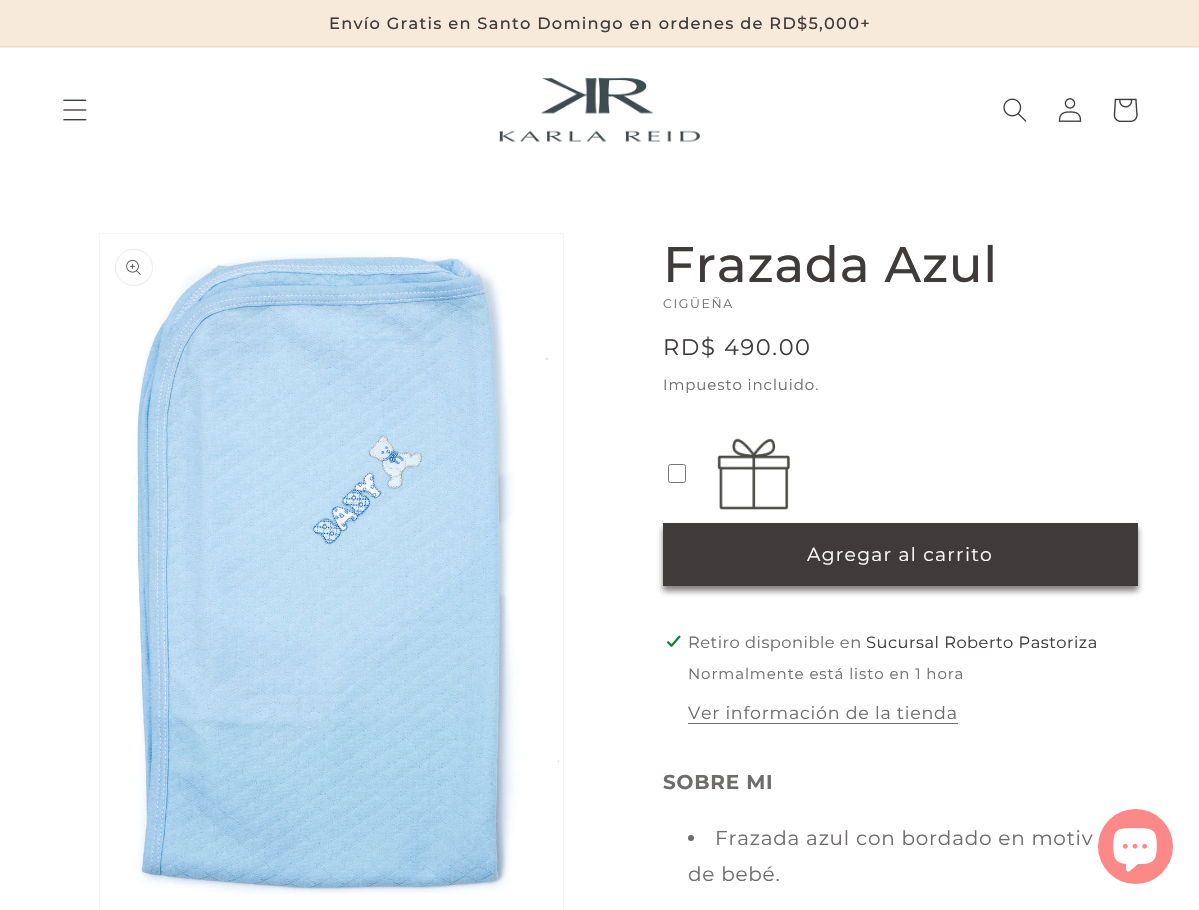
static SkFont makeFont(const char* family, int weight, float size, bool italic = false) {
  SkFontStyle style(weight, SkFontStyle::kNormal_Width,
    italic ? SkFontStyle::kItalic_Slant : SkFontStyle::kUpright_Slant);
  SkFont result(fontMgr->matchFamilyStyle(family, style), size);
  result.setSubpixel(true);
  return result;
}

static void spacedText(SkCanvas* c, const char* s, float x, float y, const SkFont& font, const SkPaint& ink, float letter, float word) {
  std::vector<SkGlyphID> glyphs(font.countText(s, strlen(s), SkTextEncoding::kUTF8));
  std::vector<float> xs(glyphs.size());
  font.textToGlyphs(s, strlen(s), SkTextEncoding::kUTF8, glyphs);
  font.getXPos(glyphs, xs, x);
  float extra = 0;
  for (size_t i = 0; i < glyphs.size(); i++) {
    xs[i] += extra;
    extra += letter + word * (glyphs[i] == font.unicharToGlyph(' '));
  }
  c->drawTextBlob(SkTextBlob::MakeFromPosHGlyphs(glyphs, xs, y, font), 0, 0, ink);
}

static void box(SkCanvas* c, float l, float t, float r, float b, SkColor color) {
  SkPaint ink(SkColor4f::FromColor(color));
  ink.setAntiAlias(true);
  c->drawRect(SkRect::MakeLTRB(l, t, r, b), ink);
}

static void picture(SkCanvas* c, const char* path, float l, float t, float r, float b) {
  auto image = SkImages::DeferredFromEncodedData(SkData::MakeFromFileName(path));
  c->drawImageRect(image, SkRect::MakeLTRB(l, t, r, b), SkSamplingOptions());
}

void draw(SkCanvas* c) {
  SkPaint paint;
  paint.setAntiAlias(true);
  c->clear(0xffffffff);
  box(c, 0, 0, 1199, 48, 0xfff7eadb);
  box(c, 0, 46, 1199, 47, 0xffe8dcce);
  SkFont face1 = makeFont("Montserrat", 500, 16.25f);
  paint.setColor(0xff403b3b);
  spacedText(c, "Envío Gratis en Santo Domingo en ordenes de RD$5,000+", 329, 29, face1, paint, 1.25f, 0);
  picture(c, "img_01.png", 63, 99, 87, 121);
  picture(c, "img_02.png", 498, 77, 700, 143);
  picture(c, "img_03.png", 1003, 98, 1027, 122);
  picture(c, "img_04.png", 1058, 98, 1082, 122);
  picture(c, "img_05.png", 1113, 98, 1138, 122);
  paint.setStyle(SkPaint::kStroke_Style);
  paint.setStrokeWidth(1);
  paint.setColor(0xfff5f5f5);
  c->drawRect(SkRect::MakeLTRB(99.5f, 233.5f, 563.5f, 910.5f), paint);
  picture(c, "img_06.png", 134, 246, 559, 895);
  paint.setColor(0xffecebeb);
  c->drawRoundRect(SkRect::MakeLTRB(115.5f, 249.5f, 152.5f, 285.5f), 18, 18, paint);
  picture(c, "img_07.png", 126, 260, 141, 275);
  SkFont face2 = makeFont("Montserrat", 500, 50);
  paint.setStyle(SkPaint::kFill_Style);
  paint.setColor(0xff403b3b);
  spacedText(c, "Frazada Azul", 663, 282, face2, paint, 0.75f, 0);
  SkFont face3 = makeFont("Montserrat", 400, 12.5f);
  paint.setColor(0xff706c6c);
  spacedText(c, "CIGÜEÑA", 663, 308, face3, paint, 1.6f, 0);
  SkFont face4 = makeFont("Montserrat", 400, 22.5f);
  paint.setColor(0xff403b3b);
  spacedText(c, "RD$ 490.00", 663, 355, face4, paint, 1.6f, 0);
  SkFont face5 = makeFont("Montserrat", 400, 15);
  paint.setColor(0xff706c6c);
  spacedText(c, "Impuesto incluido.", 663, 390, face5, paint, 0.9f, 0);
  paint.setStyle(SkPaint::kStroke_Style);
  paint.setColor(0xff767676);
  c->drawRoundRect(SkRect::MakeLTRB(668.5f, 464.5f, 685.5f, 482.5f), 2, 2, paint);
  picture(c, "img_08.png", 717, 438, 790, 510);
  paint.setStyle(SkPaint::kFill_Style);
  paint.setColor(0xa6403b3b);
  paint.setMaskFilter(SkMaskFilter::MakeBlur(kNormal_SkBlurStyle, 3));
  c->drawRect(SkRect::MakeLTRB(663, 528, 1138, 591), paint);
  paint.setMaskFilter(nullptr);
  box(c, 663, 523, 1138, 586, 0xff403b3b);
  SkFont face6 = makeFont("Montserrat", 400, 18.75f);
  paint.setColor(0xffffffff);
  spacedText(c, "Agregar al carrito", 807, 561, face6, paint, 1.25f, 0);
  picture(c, "img_09.png", 666, 635, 681, 648);
  SkFont face7 = makeFont("Montserrat", 400, 16.25f);
  paint.setColor(0xff706c6c);
  spacedText(c, "Retiro disponible en", 688, 648, face7, paint, 0.5f, 0);
  paint.setColor(0xff403b3b);
  spacedText(c, "Sucursal Roberto Pastoriza", 866, 648, face7, paint, 0.5f, 0);
  paint.setColor(0xff706c6c);
  spacedText(c, "Normalmente está listo en 1 hora", 688, 679, face5, paint, 0.9f, 0);
  SkFont face8 = makeFont("Montserrat", 400, 17.5f);
  spacedText(c, "Ver información de la tienda", 688, 719, face8, paint, 0.75f, 0);
  box(c, 688, 723, 958, 724, 0xff706c6c);
  SkFont face9 = makeFont("Montserrat", 700, 20);
  spacedText(c, "SOBRE MI", 663, 789, face9, paint, 0.75f, 0);
  c->drawCircle(691, 838, 3, paint);
  SkFont face10 = makeFont("Montserrat", 400, 20);
  spacedText(c, "Frazada azul con bordado en motiv", 715, 845, face10, paint, 0.75f, 0);
  spacedText(c, "de bebé.", 688, 881, face10, paint, 0.75f, 0);
  paint.setColor(0xfffd8888);
  c->drawCircle(1135.5f, 846.5f, 37.5f, paint);
  picture(c, "img_10.png", 1113, 828, 1157, 872);
}
